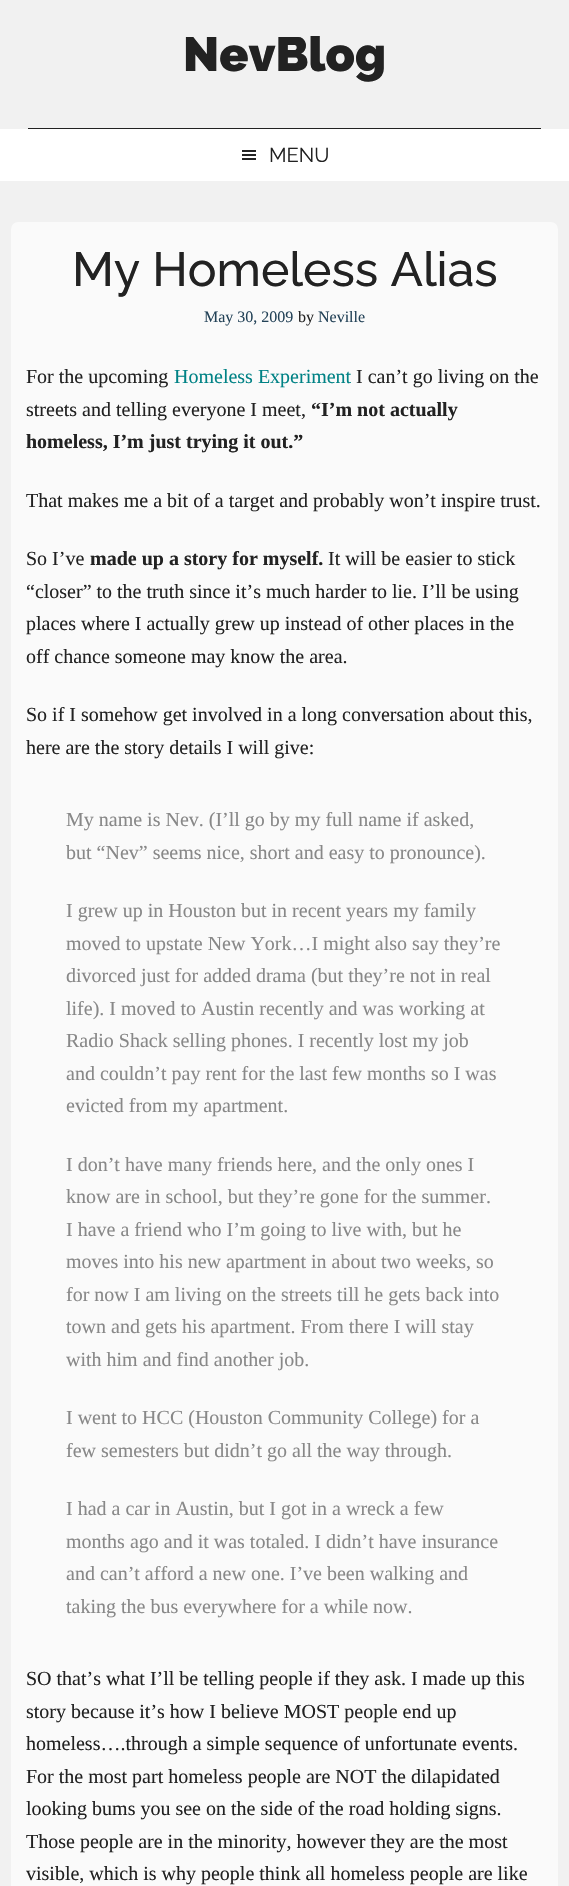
static SkFont makeFont(const char* family, int weight, float size, bool italic = false) {
  SkFontStyle style(weight, SkFontStyle::kNormal_Width,
    italic ? SkFontStyle::kItalic_Slant : SkFontStyle::kUpright_Slant);
  SkFont result(fontMgr->matchFamilyStyle(family, style), size);
  result.setSubpixel(true);
  return result;
}

static void text(SkCanvas* c, const char* s, float x, float y, const SkFont& font, SkColor color) {
  SkPaint ink(SkColor4f::FromColor(color));
  ink.setAntiAlias(true);
  c->drawString(s, x, y, font, ink);
}

static void box(SkCanvas* c, float l, float t, float r, float b, SkColor color) {
  SkPaint ink(SkColor4f::FromColor(color));
  ink.setAntiAlias(true);
  c->drawRect(SkRect::MakeLTRB(l, t, r, b), ink);
}

static void roundBox(SkCanvas* c, float l, float t, float r, float b, float radius, SkColor color) {
  SkPaint ink(SkColor4f::FromColor(color));
  ink.setAntiAlias(true);
  c->drawRoundRect(SkRect::MakeLTRB(l, t, r, b), radius, radius, ink);
}

static void picture(SkCanvas* c, const char* path, float l, float t, float r, float b) {
  auto image = SkImages::DeferredFromEncodedData(SkData::MakeFromFileName(path));
  c->drawImageRect(image, SkRect::MakeLTRB(l, t, r, b), SkSamplingOptions());
}

void draw(SkCanvas* c) {
  SkPaint paint;
  paint.setAntiAlias(true);
  c->clear(0xfff1f1f1);
  box(c, 28, 128, 541, 129, 0xff222222);
  SkFont face1 = makeFont("Raleway", 900, 48);
  text(c, "NevBlog", 183, 71, face1, 0xff222222);
  box(c, 0, 129, 569, 181, 0xffffffff);
  picture(c, "img_01.png", 242, 150, 256, 160);
  SkFont face2 = makeFont("Raleway", 400, 20);
  text(c, "MENU", 269, 162, face2, 0xff222222);
  roundBox(c, 11, 222, 558, 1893, 7, 0xfffafafa);
  SkFont face3 = makeFont("Raleway", 500, 48);
  text(c, "My Homeless Alias", 72, 286, face3, 0xff222222);
  SkFont face4 = makeFont("Liberation Serif", 400, 16);
  text(c, "May 30, 2009", 204, 322, face4, 0xff234257);
  text(c, "by", 298, 322, face4, 0xff222222);
  text(c, "Neville", 318, 322, face4, 0xff234257);
  SkFont face5 = makeFont("Liberation Serif", 400, 20);
  text(c, "For the upcoming", 26, 383, face5, 0xff222222);
  text(c, "Homeless Experiment", 174, 383, face5, 0xff008285);
  text(c, "I can’t go living on the", 356, 383, face5, 0xff222222);
  text(c, "streets and telling everyone I meet,", 26, 416, face5, 0xff222222);
  SkFont face6 = makeFont("Liberation Serif", 700, 20);
  text(c, "“I’m not actually", 311, 416, face6, 0xff222222);
  text(c, "homeless, I’m just trying it out.”", 26, 448, face6, 0xff222222);
  text(c, "That makes me a bit of a target and probably won’t inspire trust.", 26, 507, face5, 0xff222222);
  text(c, "So I’ve", 26, 565, face5, 0xff222222);
  text(c, "made up a story for myself.", 90, 565, face6, 0xff222222);
  text(c, "It will be easier to stick", 328, 565, face5, 0xff222222);
  text(c, "“closer” to the truth since it’s much harder to lie. I’ll be using", 26, 598, face5, 0xff222222);
  text(c, "places where I actually grew up instead of other places in the", 26, 630, face5, 0xff222222);
  text(c, "off chance someone may know the area.", 26, 663, face5, 0xff222222);
  text(c, "So if I somehow get involved in a long conversation about this,", 26, 721, face5, 0xff222222);
  text(c, "here are the story details I will give:", 26, 754, face5, 0xff222222);
  text(c, "My name is Nev. (I’ll go by my full name if asked,", 66, 826, face5, 0xff888888);
  text(c, "but “Nev” seems nice, short and easy to pronounce).", 66, 859, face5, 0xff888888);
  text(c, "I grew up in Houston but in recent years my family", 66, 917, face5, 0xff888888);
  text(c, "moved to upstate New York…I might also say they’re", 66, 950, face5, 0xff888888);
  text(c, "divorced just for added drama (but they’re not in real", 66, 982, face5, 0xff888888);
  text(c, "life). I moved to Austin recently and was working at", 66, 1015, face5, 0xff888888);
  text(c, "Radio Shack selling phones. I recently lost my job", 66, 1047, face5, 0xff888888);
  text(c, "and couldn’t pay rent for the last few months so I was", 66, 1080, face5, 0xff888888);
  text(c, "evicted from my apartment.", 66, 1112, face5, 0xff888888);
  text(c, "I don’t have many friends here, and the only ones I", 66, 1171, face5, 0xff888888);
  text(c, "know are in school, but they’re gone for the summer.", 66, 1203, face5, 0xff888888);
  text(c, "I have a friend who I’m going to live with, but he", 66, 1236, face5, 0xff888888);
  text(c, "moves into his new apartment in about two weeks, so", 66, 1268, face5, 0xff888888);
  text(c, "for now I am living on the streets till he gets back into", 66, 1301, face5, 0xff888888);
  text(c, "town and gets his apartment. From there I will stay", 66, 1333, face5, 0xff888888);
  text(c, "with him and find another job.", 66, 1366, face5, 0xff888888);
  text(c, "I went to HCC (Houston Community College) for a", 66, 1424, face5, 0xff888888);
  text(c, "few semesters but didn’t go all the way through.", 66, 1457, face5, 0xff888888);
  text(c, "I had a car in Austin, but I got in a wreck a few", 66, 1515, face5, 0xff888888);
  text(c, "months ago and it was totaled. I didn’t have insurance", 66, 1548, face5, 0xff888888);
  text(c, "and can’t afford a new one. I’ve been walking and", 66, 1580, face5, 0xff888888);
  text(c, "taking the bus everywhere for a while now.", 66, 1613, face5, 0xff888888);
  text(c, "SO that’s what I’ll be telling people if they ask. I made up this", 26, 1685, face5, 0xff222222);
  text(c, "story because it’s how I believe MOST people end up", 26, 1718, face5, 0xff222222);
  text(c, "homeless….through a simple sequence of unfortunate events.", 26, 1750, face5, 0xff222222);
  text(c, "For the most part homeless people are NOT the dilapidated", 26, 1783, face5, 0xff222222);
  text(c, "looking bums you see on the side of the road holding signs.", 26, 1815, face5, 0xff222222);
  text(c, "Those people are in the minority, however they are the most", 26, 1848, face5, 0xff222222);
  text(c, "visible, which is why people think all homeless people are like", 26, 1880, face5, 0xff222222);
}
